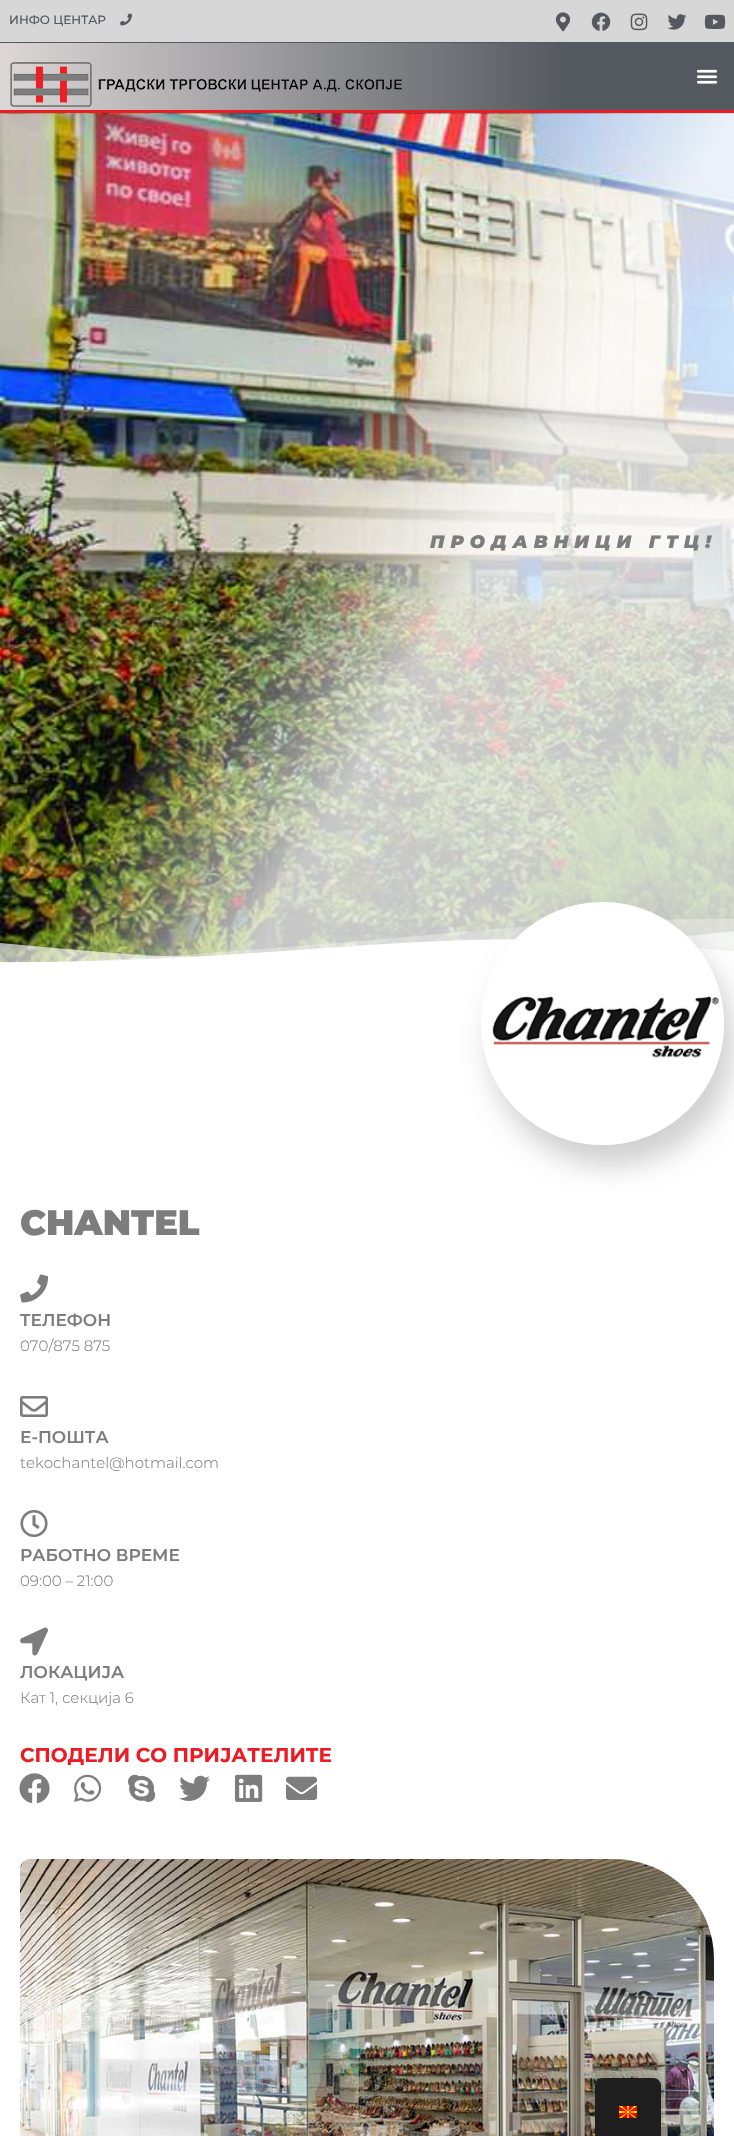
static SkFont makeFont(const char* family, int weight, float size, bool italic = false) {
  SkFontStyle style(weight, SkFontStyle::kNormal_Width,
    italic ? SkFontStyle::kItalic_Slant : SkFontStyle::kUpright_Slant);
  SkFont result(fontMgr->matchFamilyStyle(family, style), size);
  result.setSubpixel(true);
  return result;
}

static void text(SkCanvas* c, const char* s, float x, float y, const SkFont& font, SkColor color) {
  SkPaint ink(SkColor4f::FromColor(color));
  ink.setAntiAlias(true);
  c->drawString(s, x, y, font, ink);
}

static void spacedText(SkCanvas* c, const char* s, float x, float y, const SkFont& font, const SkPaint& ink, float letter, float word) {
  std::vector<SkGlyphID> glyphs(font.countText(s, strlen(s), SkTextEncoding::kUTF8));
  std::vector<float> xs(glyphs.size());
  font.textToGlyphs(s, strlen(s), SkTextEncoding::kUTF8, glyphs);
  font.getXPos(glyphs, xs, x);
  float extra = 0;
  for (size_t i = 0; i < glyphs.size(); i++) {
    xs[i] += extra;
    extra += letter + word * (glyphs[i] == font.unicharToGlyph(' '));
  }
  c->drawTextBlob(SkTextBlob::MakeFromPosHGlyphs(glyphs, xs, y, font), 0, 0, ink);
}

static void box(SkCanvas* c, float l, float t, float r, float b, SkColor color) {
  SkPaint ink(SkColor4f::FromColor(color));
  ink.setAntiAlias(true);
  c->drawRect(SkRect::MakeLTRB(l, t, r, b), ink);
}

static void picture(SkCanvas* c, const char* path, float l, float t, float r, float b) {
  auto image = SkImages::DeferredFromEncodedData(SkData::MakeFromFileName(path));
  c->drawImageRect(image, SkRect::MakeLTRB(l, t, r, b), SkSamplingOptions());
}

void draw(SkCanvas* c) {
  SkPaint paint;
  paint.setAntiAlias(true);
  c->clear(0xffffffff);
  box(c, 0, 0, 734, 42, 0xffd7d7d7);
  box(c, 0, 42, 734, 43, 0xff54595f);
  SkFont face1 = makeFont("Montserrat", 500, 12);
  text(c, "ИНФО ЦЕНТАР", 9, 24, face1, 0xff54595f);
  picture(c, "img_01.png", 120, 13, 132, 26);
  picture(c, "img_02.png", 555, 12, 571, 32);
  picture(c, "img_03.png", 591, 12, 611, 31);
  picture(c, "img_04.png", 630, 13, 648, 31);
  picture(c, "img_05.png", 667, 14, 687, 30);
  picture(c, "img_06.png", 704, 14, 726, 29);
  {
    const SkColor colors[] = {0xffddd7d7, 0xff54595f};
    const float stops[] = {0, 0.77f};
    const SkPoint ends[] = {{0, 77}, {734, 76}};
    paint.setShader(SkGradientShader::MakeLinear(ends, colors, stops, 2, SkTileMode::kClamp));
    paint.setAlpha(255);
  }
  c->drawRect(SkRect::MakeLTRB(0, 43, 734, 110), paint);
  box(c, 0, 110, 734, 113, 0xffed1c24);
  picture(c, "img_07.png", 10, 62, 402, 107);
  picture(c, "img_08.png", 696, 69, 718, 84);
  picture(c, "img_09.png", 0, 113, 734, 963);
  SkFont face2 = makeFont("Montserrat", 900, 18, true);
  paint.setShader(nullptr);
  paint.setColor(0xff7d7d7e);
  spacedText(c, "ПРОДАВНИЦИ ГТЦ!", 430, 548, face2, paint, 6, 0);
  picture(c, "img_10.png", 0, 919, 734, 967);
  c->save();
  c->clipPath(SkPathBuilder(SkPathFillType::kEvenOdd).moveTo(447, 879).lineTo(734, 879).lineTo(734, 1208).lineTo(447, 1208).close().moveTo(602.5f, 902).cubicTo(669.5f, 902, 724, 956.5f, 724, 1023.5f).cubicTo(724, 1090.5f, 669.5f, 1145, 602.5f, 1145).cubicTo(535.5f, 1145, 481, 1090.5f, 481, 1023.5f).cubicTo(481, 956.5f, 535.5f, 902, 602.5f, 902).close().detach(), true);
  paint.setColor(0x2e000000);
  paint.setMaskFilter(SkMaskFilter::MakeBlur(kNormal_SkBlurStyle, 13.5f));
  c->drawRoundRect(SkRect::MakeLTRB(489, 921, 734, 1166), 122.5f, 122.5f, paint);
  paint.setMaskFilter(nullptr);
  c->restore();
  picture(c, "img_11.png", 486, 902, 724, 1145);
  SkFont face3 = makeFont("Montserrat", 900, 35.25f);
  text(c, "CHANTEL", 20, 1235, face3, 0xff7d7d7e);
  picture(c, "img_12.png", 20, 1274, 49, 1303);
  SkFont face4 = makeFont("Montserrat", 600, 17);
  text(c, "ТЕЛЕФОН", 20, 1326, face4, 0xff7d7d7e);
  SkFont face5 = makeFont("Montserrat", 300, 15);
  text(c, "070/875 875", 20, 1351, face5, 0xff7d7d7e);
  picture(c, "img_13.png", 20, 1396, 48, 1417);
  text(c, "Е-ПОШТА", 20, 1443, face4, 0xff7d7d7e);
  text(c, "tekochantel@hotmail.com", 20, 1468, face5, 0xff7d7d7e);
  picture(c, "img_14.png", 20, 1510, 48, 1537);
  text(c, "РАБОТНО ВРЕМЕ", 20, 1561, face4, 0xff7d7d7e);
  text(c, "09:00 – 21:00", 20, 1586, face5, 0xff7d7d7e);
  picture(c, "img_15.png", 20, 1627, 48, 1656);
  text(c, "ЛОКАЦИЈА", 20, 1678, face4, 0xff7d7d7e);
  text(c, "Кат 1, секција 6", 20, 1703, face5, 0xff7d7d7e);
  SkFont face6 = makeFont("Montserrat", 700, 20);
  text(c, "СПОДЕЛИ СО ПРИЈАТЕЛИТЕ", 20, 1762, face6, 0xffed1c24);
  picture(c, "img_16.png", 19, 1773, 50, 1804);
  picture(c, "img_17.png", 74, 1774, 102, 1802);
  picture(c, "img_18.png", 128, 1774, 156, 1802);
  picture(c, "img_19.png", 179, 1775, 210, 1801);
  picture(c, "img_20.png", 235, 1774, 263, 1802);
  picture(c, "img_21.png", 286, 1776, 318, 1800);
  picture(c, "img_22.png", 20, 1859, 714, 2136);
  paint.setColor(0x40000000);
  paint.setMaskFilter(SkMaskFilter::MakeBlur(kNormal_SkBlurStyle, 4));
  c->drawRoundRect(SkRect::MakeLTRB(595, 2078, 661, 2136), 8, 8, paint);
  paint.setMaskFilter(nullptr);
  paint.setColor(0xff1e1e1e);
  c->drawPath(SkPathBuilder().moveTo(603, 2078).lineTo(653, 2078).cubicTo(657.5f, 2078, 661, 2081.5f, 661, 2086).lineTo(661, 2136).lineTo(595, 2136).lineTo(595, 2086).cubicTo(595, 2081.5f, 598.5f, 2078, 603, 2078).close().detach(), paint);
  picture(c, "img_23.png", 619, 2106, 637, 2118);
}
